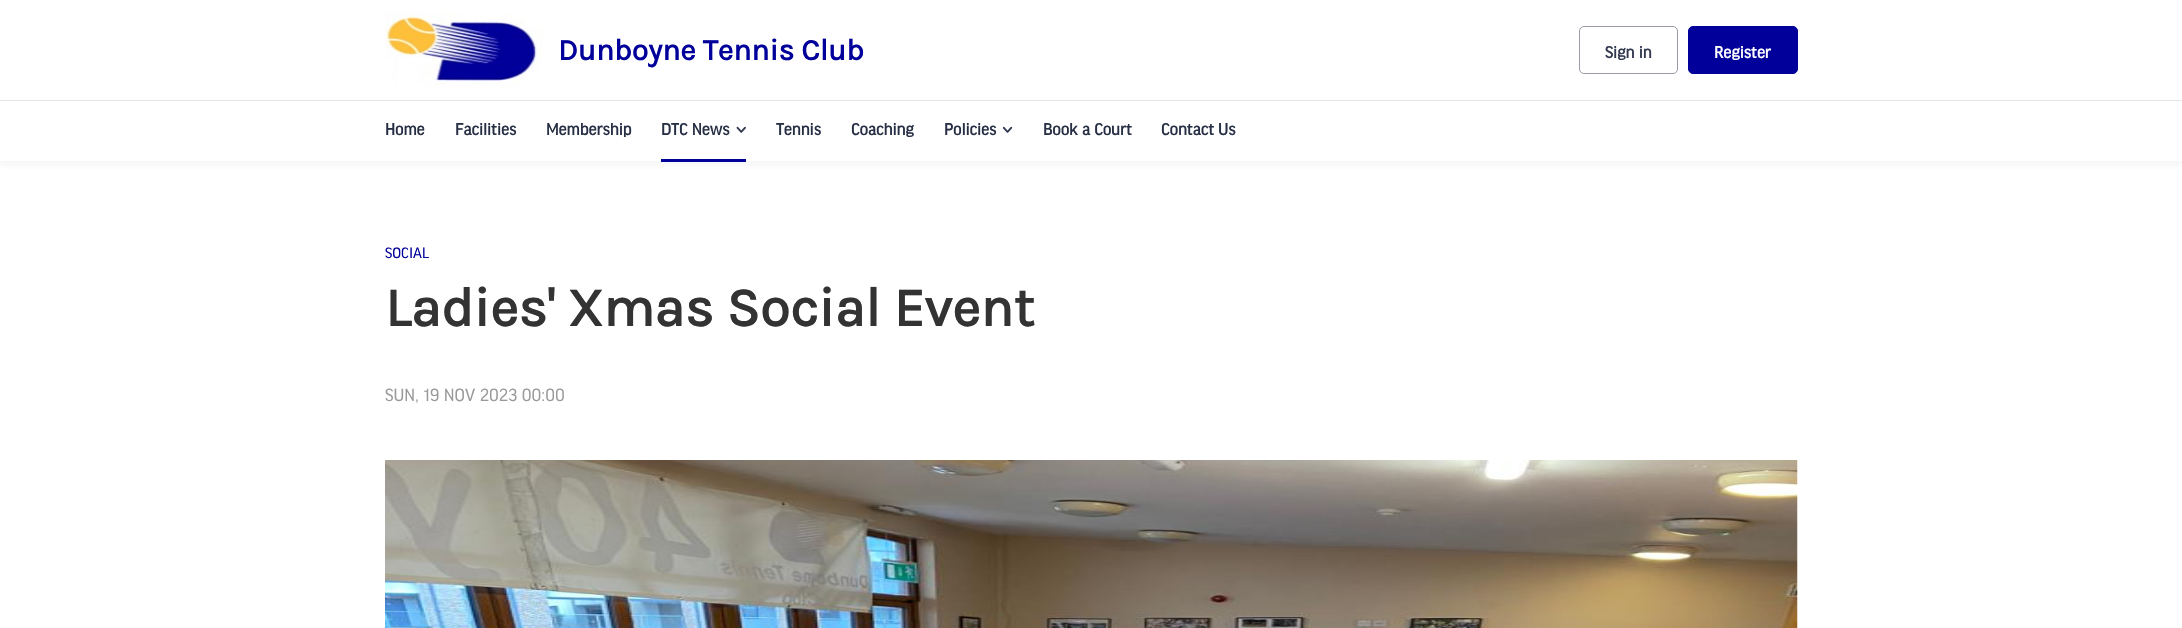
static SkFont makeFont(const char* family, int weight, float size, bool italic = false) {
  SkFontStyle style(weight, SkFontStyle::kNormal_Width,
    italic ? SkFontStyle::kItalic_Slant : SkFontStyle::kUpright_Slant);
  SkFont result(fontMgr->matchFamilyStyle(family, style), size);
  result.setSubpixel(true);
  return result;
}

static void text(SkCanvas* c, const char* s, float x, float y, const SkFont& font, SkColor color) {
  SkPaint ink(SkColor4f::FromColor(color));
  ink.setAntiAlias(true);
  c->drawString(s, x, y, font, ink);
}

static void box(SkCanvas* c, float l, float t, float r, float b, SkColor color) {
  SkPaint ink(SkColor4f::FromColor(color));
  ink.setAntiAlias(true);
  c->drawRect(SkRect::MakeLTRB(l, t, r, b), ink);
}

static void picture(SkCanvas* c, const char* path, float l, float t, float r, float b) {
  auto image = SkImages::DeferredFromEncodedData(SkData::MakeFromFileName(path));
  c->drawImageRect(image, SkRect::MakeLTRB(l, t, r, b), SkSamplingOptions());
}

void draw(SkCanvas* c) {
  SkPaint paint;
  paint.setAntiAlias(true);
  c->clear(0xffffffff);
  paint.setColor(0x0f141d37);
  paint.setMaskFilter(SkMaskFilter::MakeBlur(kNormal_SkBlurStyle, 4));
  c->drawRect(SkRect::MakeLTRB(0, 3, 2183, 164), paint);
  paint.setMaskFilter(nullptr);
  box(c, 0, 0, 2182, 161, 0xffffffff);
  picture(c, "img_01.png", 385, 12, 543, 88);
  SkFont face1 = makeFont("Karla", 700, 30);
  text(c, "Dunboyne Tennis Club", 558, 60, face1, 0xff01009a);
  paint.setStyle(SkPaint::kStroke_Style);
  paint.setStrokeWidth(1);
  paint.setColor(0xff989ca7);
  c->drawRoundRect(SkRect::MakeLTRB(1579.5f, 26.5f, 1677.5f, 73.5f), 4.5f, 4.5f, paint);
  SkFont face2 = makeFont("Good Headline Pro", 700, 17.5f);
  text(c, "Sign in", 1605, 58, face2, 0xff323950);
  paint.setStyle(SkPaint::kFill_Style);
  paint.setColor(0xff01009a);
  c->drawRoundRect(SkRect::MakeLTRB(1688.5f, 26.5f, 1797.5f, 73.5f), 4.5f, 4.5f, paint);
  paint.setStyle(SkPaint::kStroke_Style);
  c->drawRoundRect(SkRect::MakeLTRB(1688.5f, 26.5f, 1797.5f, 73.5f), 4.5f, 4.5f, paint);
  text(c, "Register", 1714, 58, face2, 0xffffffff);
  box(c, 0, 100, 2182, 101, 0xffe3e5eb);
  text(c, "Home", 385, 135, face2, 0xff272f45);
  text(c, "Facilities", 455, 135, face2, 0xff272f45);
  text(c, "Membership", 546, 135, face2, 0xff272f45);
  box(c, 661, 159, 746, 162, 0xff01009a);
  text(c, "DTC News", 661, 135, face2, 0xff272f45);
  picture(c, "img_02.png", 736, 126, 746, 133);
  text(c, "Tennis", 776, 135, face2, 0xff272f45);
  text(c, "Coaching", 851, 135, face2, 0xff272f45);
  text(c, "Policies", 944, 135, face2, 0xff272f45);
  picture(c, "img_03.png", 1003, 126, 1013, 133);
  text(c, "Book a Court", 1043, 135, face2, 0xff272f45);
  text(c, "Contact Us", 1161, 135, face2, 0xff272f45);
  SkFont face3 = makeFont("Good Headline Pro", 400, 16);
  text(c, "SOCIAL", 385, 258, face3, 0xff01009a);
  SkFont face4 = makeFont("Karla", 700, 55);
  text(c, "Ladies' Xmas Social Event", 385, 326, face4, 0xff333333);
  SkFont face5 = makeFont("Good Headline Pro", 400, 18.75f);
  text(c, "SUN, 19 NOV 2023 00:00", 385, 401, face5, 0xff999999);
  picture(c, "img_04.png", 385, 460, 1798, 628);
}
